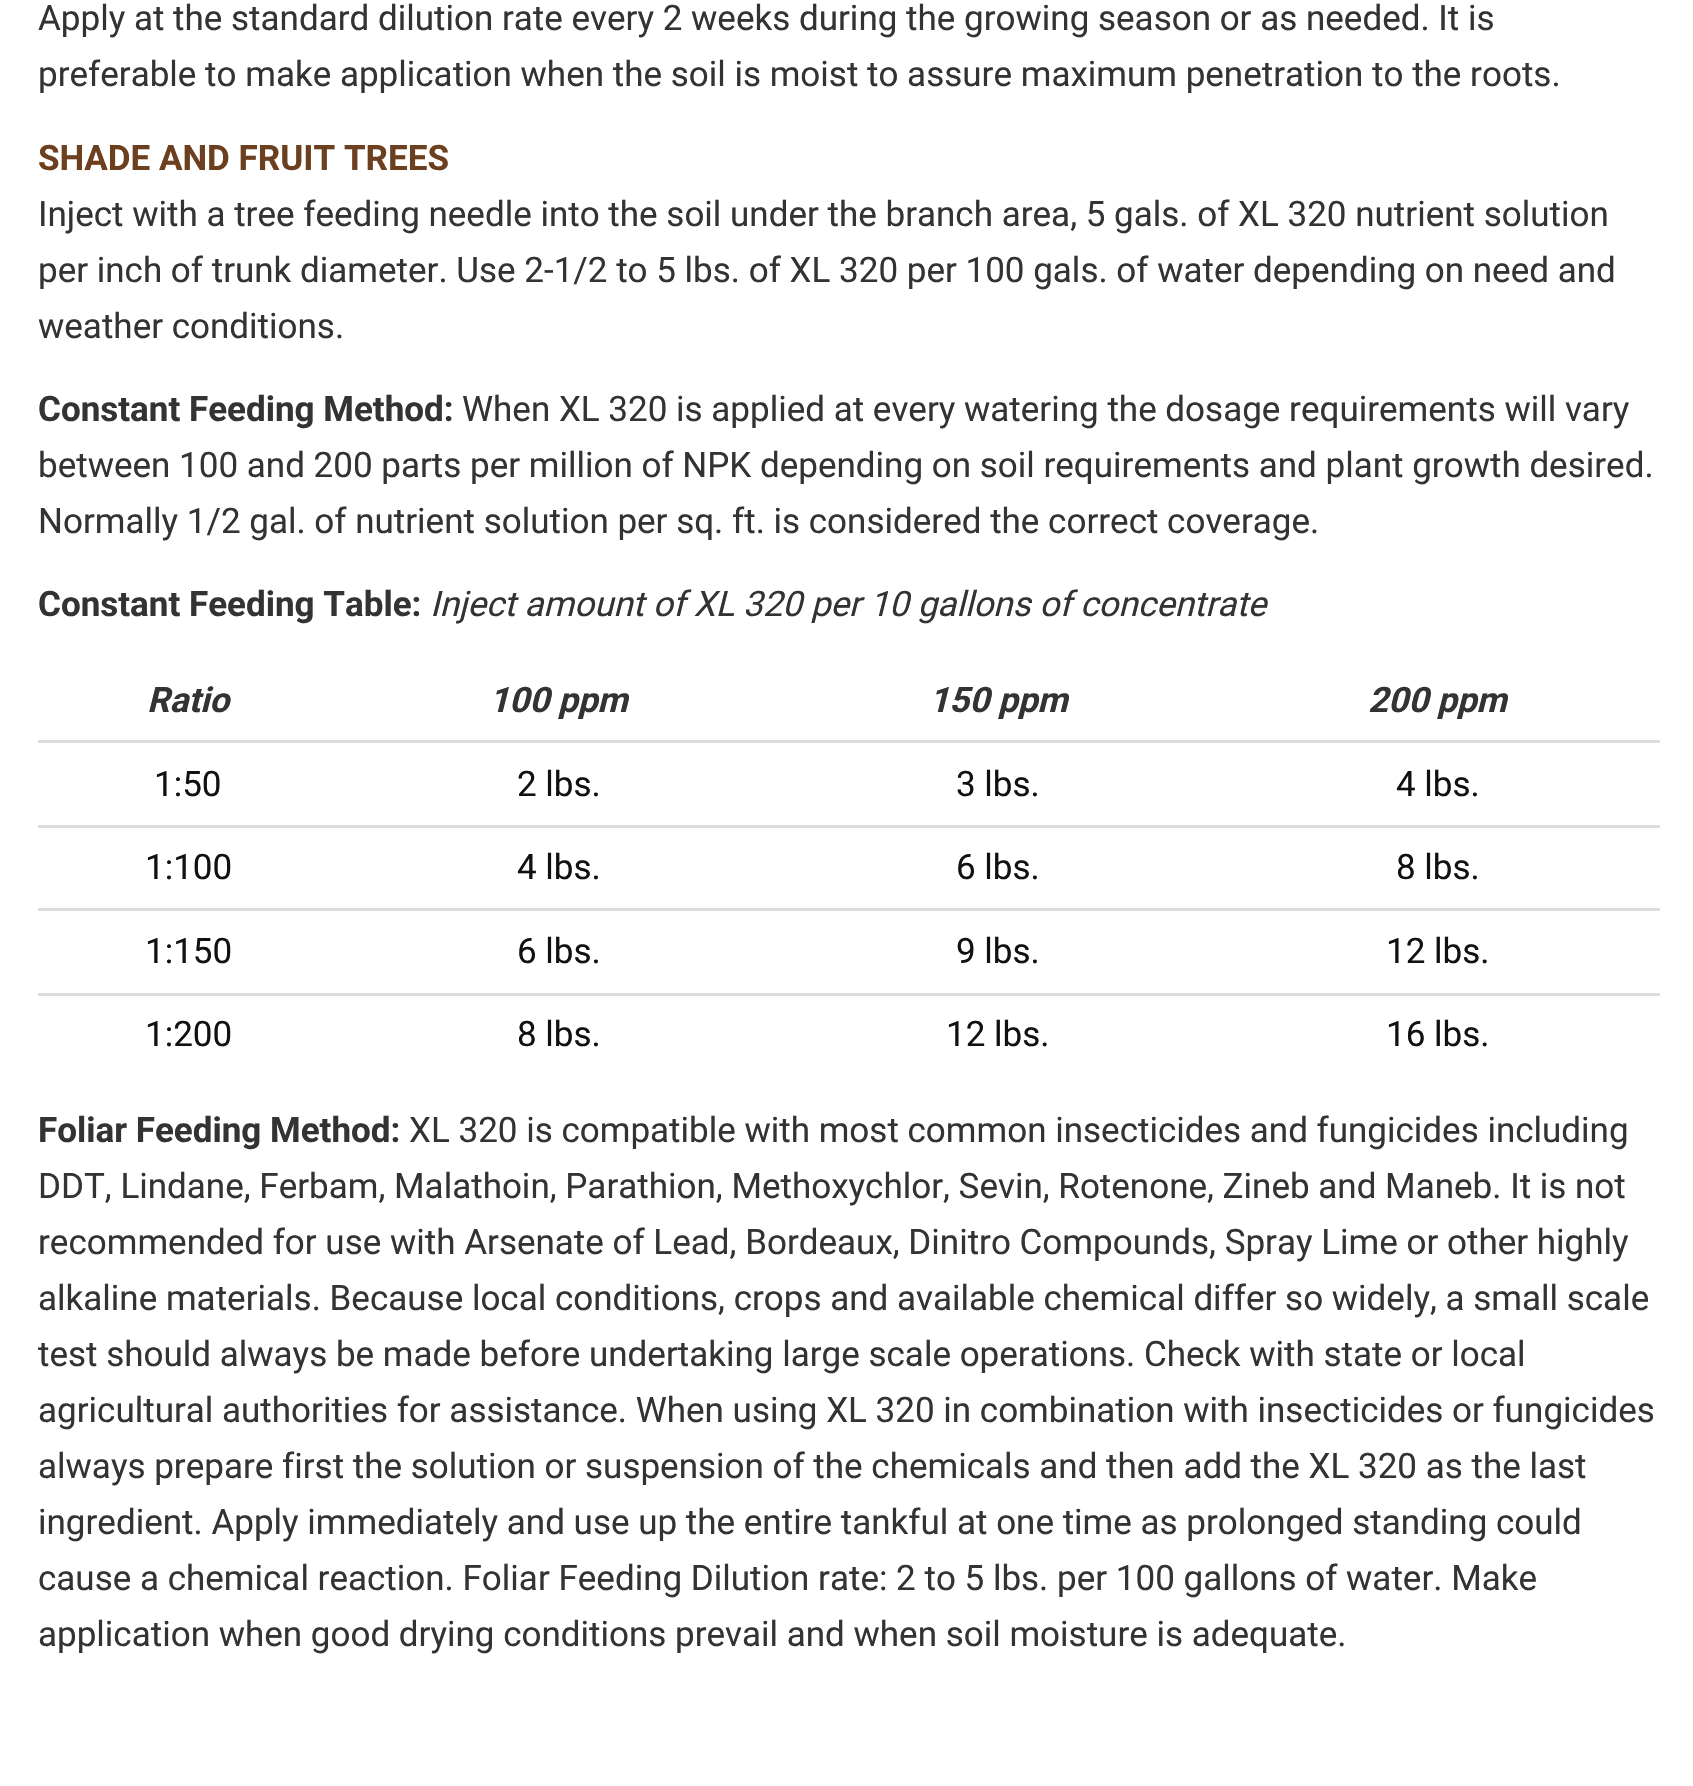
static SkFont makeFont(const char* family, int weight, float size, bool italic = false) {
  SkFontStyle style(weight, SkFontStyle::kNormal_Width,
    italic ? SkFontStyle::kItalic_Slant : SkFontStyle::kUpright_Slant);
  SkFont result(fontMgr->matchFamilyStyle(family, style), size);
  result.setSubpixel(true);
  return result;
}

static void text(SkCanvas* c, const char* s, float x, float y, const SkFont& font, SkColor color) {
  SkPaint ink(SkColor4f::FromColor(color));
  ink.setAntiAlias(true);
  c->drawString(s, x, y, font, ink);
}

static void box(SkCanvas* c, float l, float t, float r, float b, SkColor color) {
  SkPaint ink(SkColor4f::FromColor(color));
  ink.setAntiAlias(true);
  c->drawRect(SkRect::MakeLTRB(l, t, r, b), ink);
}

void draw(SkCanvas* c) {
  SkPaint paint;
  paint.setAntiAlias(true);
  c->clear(0xffffffff);
  SkFont face1 = makeFont("Roboto", 400, 35);
  text(c, "Apply at the standard dilution rate every 2 weeks during the growing season or as needed. It is", 38, 30, face1, 0xff333333);
  text(c, "preferable to make application when the soil is moist to assure maximum penetration to the roots.", 38, 86, face1, 0xff333333);
  SkFont face2 = makeFont("Roboto", 700, 35);
  text(c, "SHADE AND FRUIT TREES", 38, 170, face2, 0xff6c3f1e);
  text(c, "Inject with a tree feeding needle into the soil under the branch area, 5 gals. of XL 320 nutrient solution", 38, 226, face1, 0xff333333);
  text(c, "per inch of trunk diameter. Use 2-1/2 to 5 lbs. of XL 320 per 100 gals. of water depending on need and", 38, 282, face1, 0xff333333);
  text(c, "weather conditions.", 38, 338, face1, 0xff333333);
  text(c, "Constant Feeding Method:", 38, 421, face2, 0xff333333);
  text(c, "When XL 320 is applied at every watering the dosage requirements will vary", 462, 421, face1, 0xff333333);
  text(c, "between 100 and 200 parts per million of NPK depending on soil requirements and plant growth desired.", 38, 477, face1, 0xff333333);
  text(c, "Normally 1/2 gal. of nutrient solution per sq. ft. is considered the correct coverage.", 38, 533, face1, 0xff333333);
  text(c, "Constant Feeding Table:", 38, 616, face2, 0xff333333);
  SkFont face3 = makeFont("Roboto", 400, 35, true);
  text(c, "Inject amount of XL 320 per 10 gallons of concentrate", 430, 616, face3, 0xff333333);
  SkFont face4 = makeFont("Roboto", 700, 35, true);
  text(c, "Ratio", 147, 712, face4, 0xff333333);
  text(c, "100 ppm", 489, 712, face4, 0xff333333);
  text(c, "150 ppm", 929, 712, face4, 0xff333333);
  text(c, "200 ppm", 1368, 712, face4, 0xff333333);
  text(c, "1:50", 154, 796, face1, 0xff111111);
  text(c, "2 lbs.", 517, 796, face1, 0xff111111);
  text(c, "3 lbs.", 956, 796, face1, 0xff111111);
  box(c, 38, 740, 1660, 743, 0xffdddddd);
  text(c, "4 lbs.", 1396, 796, face1, 0xff111111);
  text(c, "1:100", 145, 879, face1, 0xff111111);
  text(c, "4 lbs.", 517, 879, face1, 0xff111111);
  text(c, "6 lbs.", 956, 879, face1, 0xff111111);
  box(c, 38, 825, 1660, 828, 0xffdddddd);
  text(c, "8 lbs.", 1396, 879, face1, 0xff111111);
  text(c, "1:150", 145, 963, face1, 0xff111111);
  text(c, "6 lbs.", 517, 963, face1, 0xff111111);
  text(c, "9 lbs.", 956, 963, face1, 0xff111111);
  box(c, 38, 908, 1660, 911, 0xffdddddd);
  text(c, "12 lbs.", 1386, 963, face1, 0xff111111);
  text(c, "1:200", 145, 1046, face1, 0xff111111);
  text(c, "8 lbs.", 517, 1046, face1, 0xff111111);
  text(c, "12 lbs.", 946, 1046, face1, 0xff111111);
  box(c, 38, 993, 1660, 996, 0xffdddddd);
  text(c, "16 lbs.", 1386, 1046, face1, 0xff111111);
  text(c, "Foliar Feeding Method:", 38, 1142, face2, 0xff333333);
  text(c, "XL 320 is compatible with most common insecticides and fungicides including", 409, 1142, face1, 0xff333333);
  text(c, "DDT, Lindane, Ferbam, Malathoin, Parathion, Methoxychlor, Sevin, Rotenone, Zineb and Maneb. It is not", 38, 1198, face1, 0xff333333);
  text(c, "recommended for use with Arsenate of Lead, Bordeaux, Dinitro Compounds, Spray Lime or other highly", 38, 1254, face1, 0xff333333);
  text(c, "alkaline materials. Because local conditions, crops and available chemical differ so widely, a small scale", 38, 1310, face1, 0xff333333);
  text(c, "test should always be made before undertaking large scale operations. Check with state or local", 38, 1366, face1, 0xff333333);
  text(c, "agricultural authorities for assistance. When using XL 320 in combination with insecticides or fungicides", 38, 1422, face1, 0xff333333);
  text(c, "always prepare first the solution or suspension of the chemicals and then add the XL 320 as the last", 38, 1478, face1, 0xff333333);
  text(c, "ingredient. Apply immediately and use up the entire tankful at one time as prolonged standing could", 38, 1534, face1, 0xff333333);
  text(c, "cause a chemical reaction. Foliar Feeding Dilution rate: 2 to 5 lbs. per 100 gallons of water. Make", 38, 1590, face1, 0xff333333);
  text(c, "application when good drying conditions prevail and when soil moisture is adequate.", 38, 1646, face1, 0xff333333);
}
